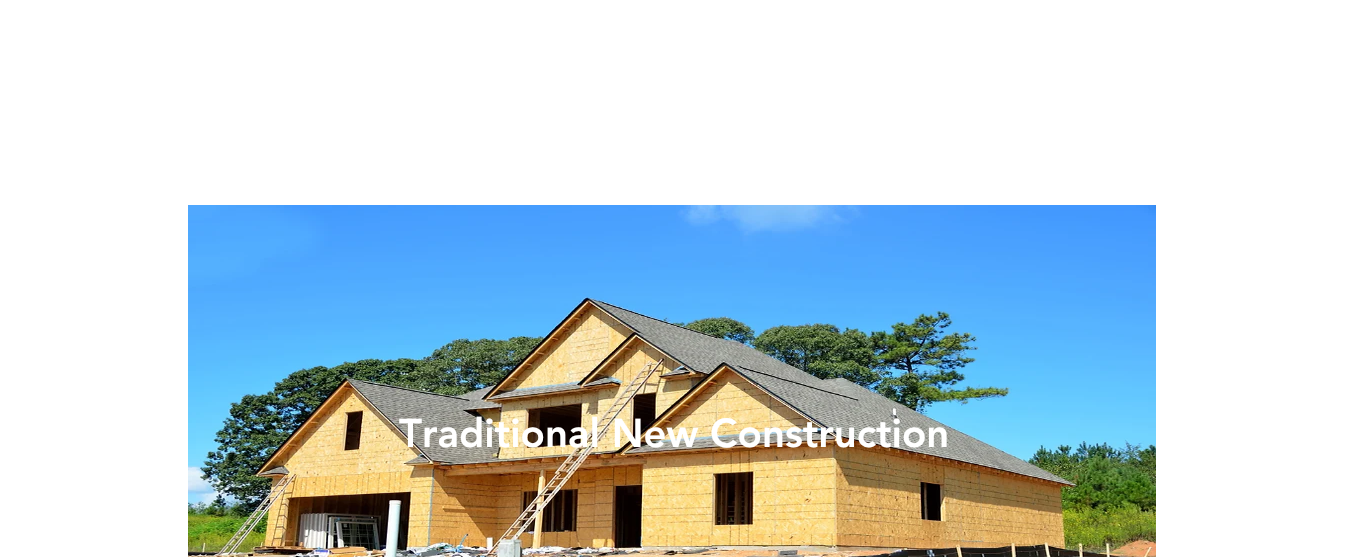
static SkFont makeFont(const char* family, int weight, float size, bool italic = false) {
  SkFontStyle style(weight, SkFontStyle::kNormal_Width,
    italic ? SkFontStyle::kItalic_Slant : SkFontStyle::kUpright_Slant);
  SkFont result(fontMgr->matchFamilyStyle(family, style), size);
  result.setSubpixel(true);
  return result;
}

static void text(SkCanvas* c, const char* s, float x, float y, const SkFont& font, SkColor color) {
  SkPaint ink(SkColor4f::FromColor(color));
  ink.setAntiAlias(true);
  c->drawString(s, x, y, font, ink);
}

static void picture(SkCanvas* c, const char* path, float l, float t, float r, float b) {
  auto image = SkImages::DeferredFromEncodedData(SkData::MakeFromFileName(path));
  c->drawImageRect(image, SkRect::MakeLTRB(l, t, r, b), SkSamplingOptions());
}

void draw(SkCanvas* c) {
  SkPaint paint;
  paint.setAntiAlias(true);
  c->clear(0xffffffff);
  picture(c, "img_01.png", 188, 205, 1156, 557);
  SkFont face1 = makeFont("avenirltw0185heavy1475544", 900, 40);
  text(c, "Traditional New Construction", 399, 447, face1, 0xffffffff);
}
